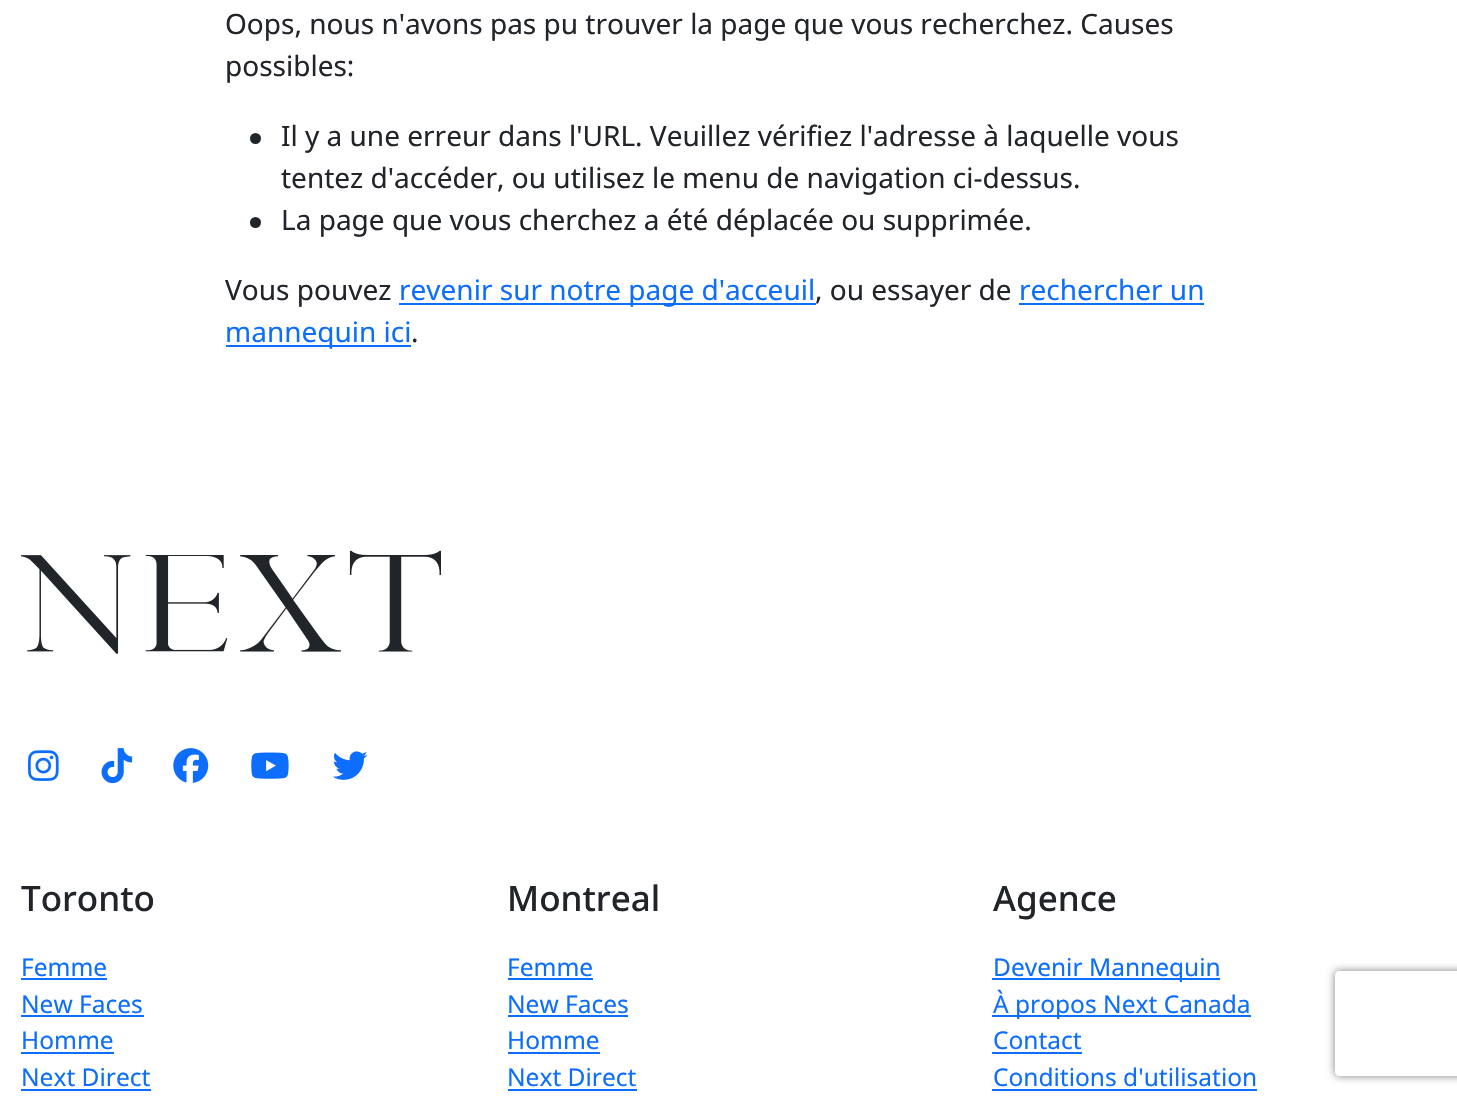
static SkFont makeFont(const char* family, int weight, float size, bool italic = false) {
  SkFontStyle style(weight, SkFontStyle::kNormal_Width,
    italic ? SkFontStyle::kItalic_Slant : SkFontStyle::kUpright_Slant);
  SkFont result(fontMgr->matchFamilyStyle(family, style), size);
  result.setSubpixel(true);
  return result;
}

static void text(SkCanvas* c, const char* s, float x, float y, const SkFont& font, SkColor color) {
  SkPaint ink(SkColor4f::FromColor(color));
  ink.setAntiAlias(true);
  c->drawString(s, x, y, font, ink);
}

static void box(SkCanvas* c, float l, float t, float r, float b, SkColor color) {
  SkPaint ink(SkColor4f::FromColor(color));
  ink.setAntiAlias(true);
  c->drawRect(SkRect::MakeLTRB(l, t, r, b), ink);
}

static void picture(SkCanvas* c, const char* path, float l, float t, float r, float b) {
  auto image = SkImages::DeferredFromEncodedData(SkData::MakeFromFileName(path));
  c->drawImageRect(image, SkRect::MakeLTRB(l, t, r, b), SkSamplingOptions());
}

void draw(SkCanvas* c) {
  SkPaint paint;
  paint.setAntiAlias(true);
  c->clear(0xffffffff);
  SkFont face1 = makeFont("Noto Sans", 400, 28);
  text(c, "Oops, nous n'avons pas pu trouver la page que vous recherchez. Causes", 225, 34, face1, 0xff212529);
  text(c, "possibles:", 225, 76, face1, 0xff212529);
  paint.setColor(0xff212529);
  c->drawCircle(255.5f, 138.5f, 5.5f, paint);
  text(c, "Il y a une erreur dans l'URL. Veuillez vérifiez l'adresse à laquelle vous", 281, 146, face1, 0xff212529);
  text(c, "tentez d'accéder, ou utilisez le menu de navigation ci-dessus.", 281, 188, face1, 0xff212529);
  c->drawCircle(255.5f, 222.5f, 5.5f, paint);
  text(c, "La page que vous cherchez a été déplacée ou supprimée.", 281, 230, face1, 0xff212529);
  text(c, "Vous pouvez", 225, 300, face1, 0xff212529);
  box(c, 399, 303, 816, 305, 0xff0d6efd);
  text(c, "revenir sur notre page d'acceuil", 399, 300, face1, 0xff0d6efd);
  text(c, ", ou essayer de", 815, 300, face1, 0xff212529);
  text(c, "rechercher un", 1019, 300, face1, 0xff0d6efd);
  box(c, 1019, 303, 1204, 305, 0xff0d6efd);
  box(c, 226, 345, 411, 347, 0xff0d6efd);
  text(c, "mannequin ici", 225, 342, face1, 0xff0d6efd);
  text(c, ".", 411, 342, face1, 0xff212529);
  picture(c, "img_01.png", 21, 550, 441, 654);
  picture(c, "img_02.png", 28, 750, 59, 781);
  picture(c, "img_03.png", 101, 748, 133, 784);
  picture(c, "img_04.png", 173, 748, 209, 783);
  picture(c, "img_05.png", 251, 752, 289, 779);
  picture(c, "img_06.png", 332, 751, 368, 780);
  SkFont face2 = makeFont("Noto Sans", 500, 35);
  text(c, "Toronto", 21, 911, face2, 0xff212529);
  SkFont face3 = makeFont("Noto Sans", 400, 24.5f);
  text(c, "Femme", 21, 976, face3, 0xff0d6efd);
  box(c, 21, 978, 107, 980, 0xff0d6efd);
  text(c, "New Faces", 21, 1013, face3, 0xff0d6efd);
  box(c, 21, 1015, 144, 1017, 0xff0d6efd);
  text(c, "Homme", 21, 1049, face3, 0xff0d6efd);
  box(c, 21, 1052, 114, 1054, 0xff0d6efd);
  text(c, "Next Direct", 21, 1086, face3, 0xff0d6efd);
  box(c, 21, 1089, 151, 1091, 0xff0d6efd);
  text(c, "Montreal", 507, 911, face2, 0xff212529);
  text(c, "Femme", 507, 976, face3, 0xff0d6efd);
  box(c, 508, 978, 593, 980, 0xff0d6efd);
  text(c, "New Faces", 507, 1013, face3, 0xff0d6efd);
  box(c, 508, 1015, 628, 1017, 0xff0d6efd);
  text(c, "Homme", 507, 1049, face3, 0xff0d6efd);
  box(c, 508, 1052, 600, 1054, 0xff0d6efd);
  text(c, "Next Direct", 507, 1086, face3, 0xff0d6efd);
  box(c, 508, 1089, 637, 1091, 0xff0d6efd);
  text(c, "Agence", 993, 911, face2, 0xff212529);
  box(c, 992, 978, 1220, 980, 0xff0d6efd);
  text(c, "Devenir Mannequin", 993, 976, face3, 0xff0d6efd);
  box(c, 992, 1015, 1251, 1017, 0xff0d6efd);
  text(c, "À propos Next Canada", 993, 1013, face3, 0xff0d6efd);
  text(c, "Contact", 993, 1049, face3, 0xff0d6efd);
  box(c, 992, 1052, 1082, 1054, 0xff0d6efd);
  text(c, "Conditions d'utilisation", 993, 1086, face3, 0xff0d6efd);
  box(c, 992, 1089, 1257, 1091, 0xff0d6efd);
  c->save();
  c->clipPath(SkPathBuilder(SkPathFillType::kEvenOdd).moveTo(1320, 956).lineTo(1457, 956).lineTo(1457, 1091).lineTo(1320, 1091).close().moveTo(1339, 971).lineTo(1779, 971).cubicTo(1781, 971, 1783, 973, 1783, 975).lineTo(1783, 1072).cubicTo(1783, 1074, 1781, 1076, 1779, 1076).lineTo(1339, 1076).cubicTo(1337, 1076, 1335, 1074, 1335, 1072).lineTo(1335, 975).cubicTo(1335, 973, 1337, 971, 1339, 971).close().detach(), true);
  paint.setColor(0xff808080);
  paint.setMaskFilter(SkMaskFilter::MakeBlur(kNormal_SkBlurStyle, 4.5f));
  c->drawRoundRect(SkRect::MakeLTRB(1335, 971, 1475, 1076), 4, 4, paint);
  paint.setMaskFilter(nullptr);
  c->restore();
}
